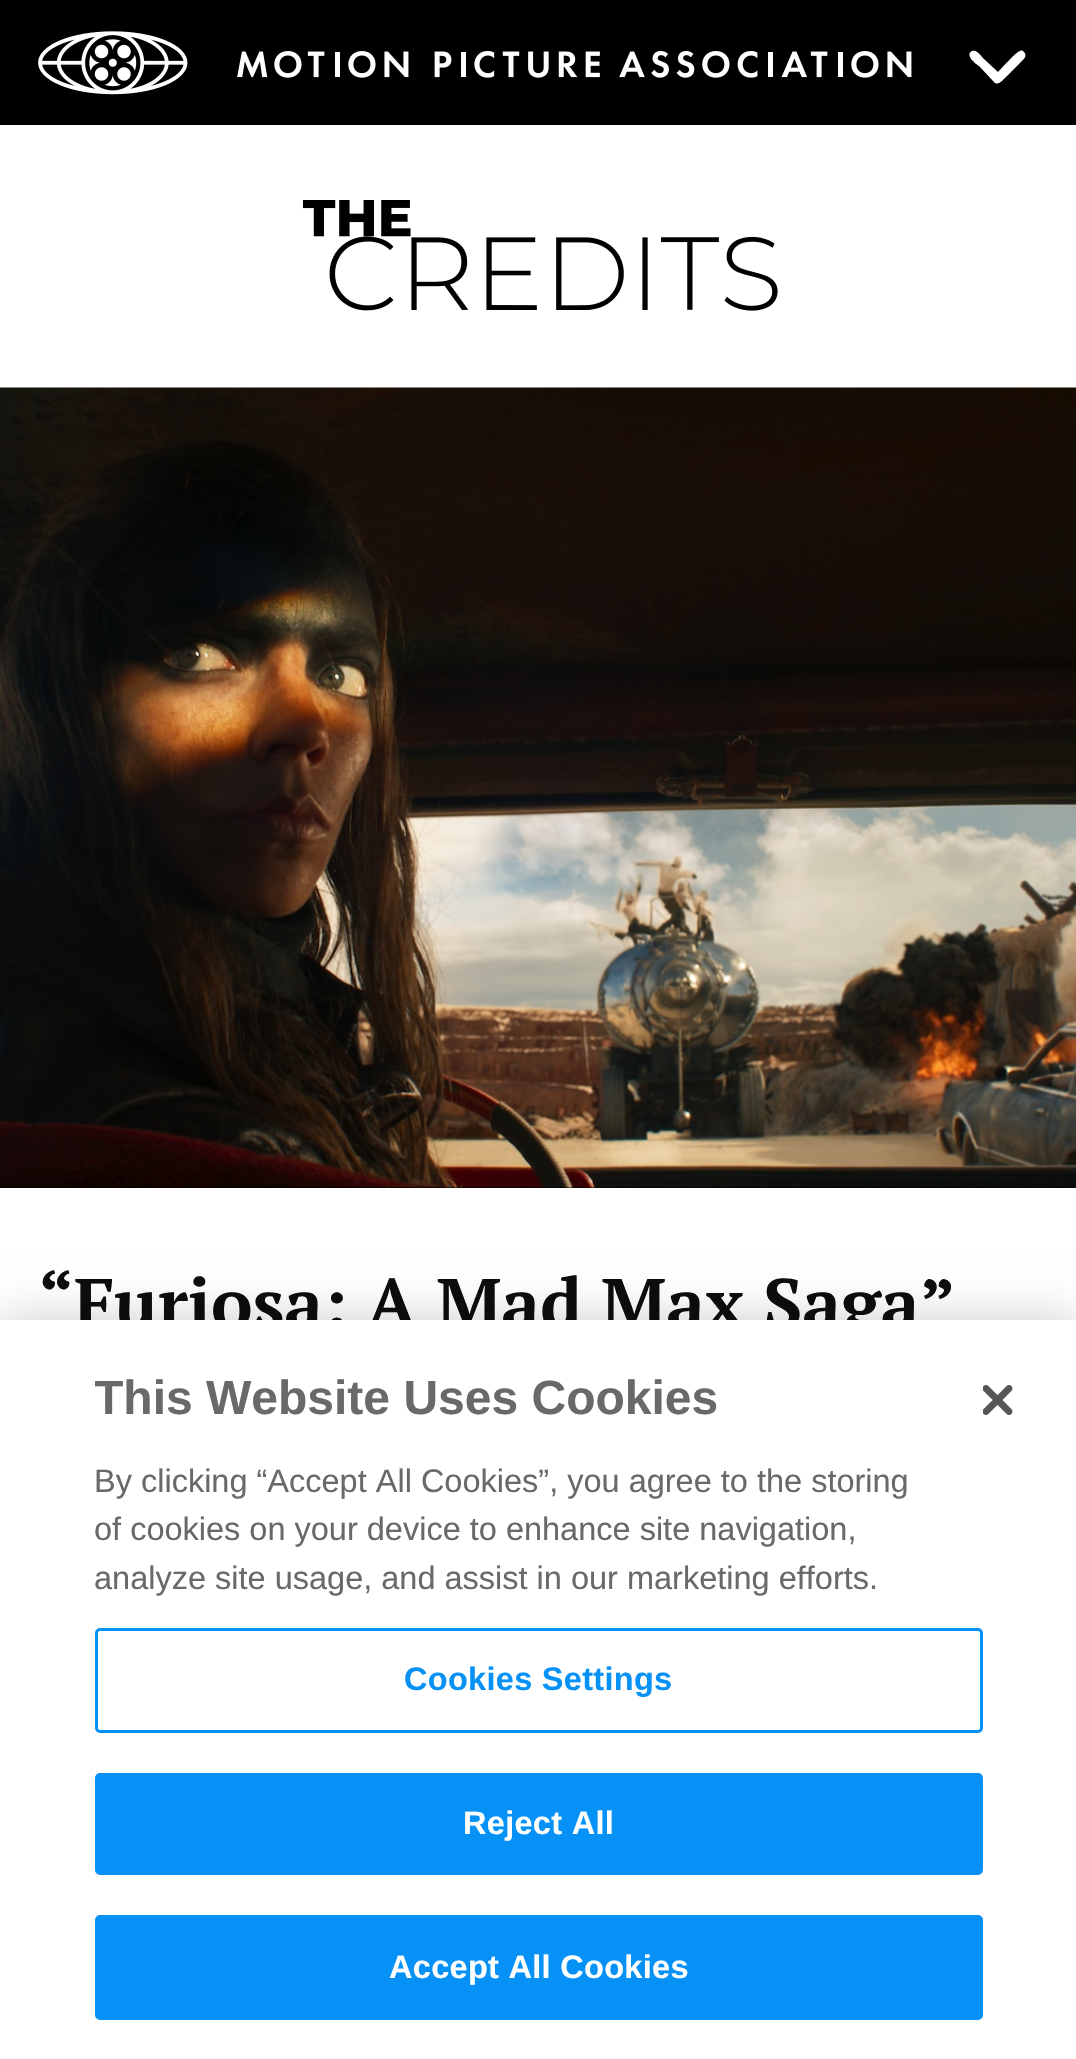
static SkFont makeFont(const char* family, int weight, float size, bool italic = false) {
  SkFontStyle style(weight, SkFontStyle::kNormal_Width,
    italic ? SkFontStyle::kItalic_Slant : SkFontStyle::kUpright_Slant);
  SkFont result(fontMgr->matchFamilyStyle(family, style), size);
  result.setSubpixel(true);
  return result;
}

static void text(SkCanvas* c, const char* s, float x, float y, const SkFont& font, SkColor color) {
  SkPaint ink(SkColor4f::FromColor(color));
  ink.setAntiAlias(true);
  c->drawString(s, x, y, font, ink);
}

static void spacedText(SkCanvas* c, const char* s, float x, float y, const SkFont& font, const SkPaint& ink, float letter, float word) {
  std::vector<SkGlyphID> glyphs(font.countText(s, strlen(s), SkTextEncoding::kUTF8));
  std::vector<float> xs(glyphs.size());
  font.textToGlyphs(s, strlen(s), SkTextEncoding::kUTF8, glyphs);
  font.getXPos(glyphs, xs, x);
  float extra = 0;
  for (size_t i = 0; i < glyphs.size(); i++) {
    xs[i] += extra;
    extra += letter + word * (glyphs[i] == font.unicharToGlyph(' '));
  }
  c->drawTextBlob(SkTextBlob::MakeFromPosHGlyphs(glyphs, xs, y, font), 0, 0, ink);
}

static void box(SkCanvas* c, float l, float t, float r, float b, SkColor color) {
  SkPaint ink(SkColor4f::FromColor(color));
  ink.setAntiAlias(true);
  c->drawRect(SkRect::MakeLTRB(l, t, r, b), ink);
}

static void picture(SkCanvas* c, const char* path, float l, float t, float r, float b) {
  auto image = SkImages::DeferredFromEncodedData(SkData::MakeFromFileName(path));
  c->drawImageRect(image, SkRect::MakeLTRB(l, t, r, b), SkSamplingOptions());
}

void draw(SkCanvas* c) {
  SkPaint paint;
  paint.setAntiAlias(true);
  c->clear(0xffffffff);
  box(c, 0, 0, 1076, 125, 0xff000000);
  picture(c, "img_01.png", 38, 31, 912, 95);
  paint.setColor(0xffffffff);
  c->drawPath(SkPathBuilder().moveTo(994, 82).cubicTo(998, 86, 1002, 81, 1005, 78).lineTo(1020, 63).cubicTo(1023, 60, 1028, 56, 1024, 52).cubicTo(1023, 51, 1022, 50, 1020, 51).cubicTo(1017, 51, 1001, 69, 998, 72).lineTo(984, 59).cubicTo(981, 56, 977, 49, 972, 51).cubicTo(964, 55, 977, 65, 979, 66).close().detach(), paint);
  picture(c, "img_02.png", 303, 200, 778, 311);
  box(c, 0, 1187, 1076, 1188, 0xff000000);
  picture(c, "img_03.png", 0, 387, 1076, 1188);
  SkFont face1 = makeFont("PT Serif", 700, 70);
  text(c, "“Furiosa: A Mad Max Saga”", 38, 1328, face1, 0xff0d0d0e);
  paint.setColor(0x33000000);
  paint.setMaskFilter(SkMaskFilter::MakeBlur(kNormal_SkBlurStyle, 22.5f));
  c->drawRect(SkRect::MakeLTRB(0, 1320, 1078, 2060), paint);
  paint.setMaskFilter(nullptr);
  box(c, 0, 1320, 1076, 2059, 0xffffffff);
  c->save();
  c->clipRect(SkRect::MakeLTRB(95, 1370, 935, 1603));
  SkFont face2 = makeFont("Liberation Sans", 700, 48);
  text(c, "This Website Uses Cookies", 94, 1414, face2, 0xff696969);
  c->restore();
  SkFont face3 = makeFont("Liberation Sans", 400, 32.5f);
  text(c, "By clicking “Accept All Cookies”, you agree to the storing", 94, 1492, face3, 0xff696969);
  text(c, "of cookies on your device to enhance site navigation,", 94, 1540, face3, 0xff696969);
  text(c, "analyze site usage, and assist in our marketing efforts.", 94, 1589, face3, 0xff696969);
  paint.setStyle(SkPaint::kStroke_Style);
  paint.setStrokeWidth(3);
  paint.setColor(0xff0591f5);
  c->drawRoundRect(SkRect::MakeLTRB(96.5f, 1629.5f, 981.5f, 1731.5f), 3.5f, 3.5f, paint);
  SkFont face4 = makeFont("Liberation Sans", 700, 32.5f);
  paint.setStyle(SkPaint::kFill_Style);
  spacedText(c, "Cookies Settings", 404, 1690, face4, paint, 0.3f, 0);
  c->drawRoundRect(SkRect::MakeLTRB(96.5f, 1774.5f, 981.5f, 1873.5f), 3.5f, 3.5f, paint);
  paint.setStyle(SkPaint::kStroke_Style);
  c->drawRoundRect(SkRect::MakeLTRB(96.5f, 1774.5f, 981.5f, 1873.5f), 3.5f, 3.5f, paint);
  paint.setStyle(SkPaint::kFill_Style);
  paint.setColor(0xffffffff);
  spacedText(c, "Reject All", 463, 1834, face4, paint, 0.3f, 0);
  paint.setColor(0xff0591f5);
  c->drawRoundRect(SkRect::MakeLTRB(96.5f, 1916.5f, 981.5f, 2018.5f), 3.5f, 3.5f, paint);
  paint.setStyle(SkPaint::kStroke_Style);
  c->drawRoundRect(SkRect::MakeLTRB(96.5f, 1916.5f, 981.5f, 2018.5f), 3.5f, 3.5f, paint);
  paint.setStyle(SkPaint::kFill_Style);
  paint.setColor(0xffffffff);
  spacedText(c, "Accept All Cookies", 389, 1978, face4, paint, 0.3f, 0);
  picture(c, "img_04.png", 983, 1385, 1013, 1415);
}
